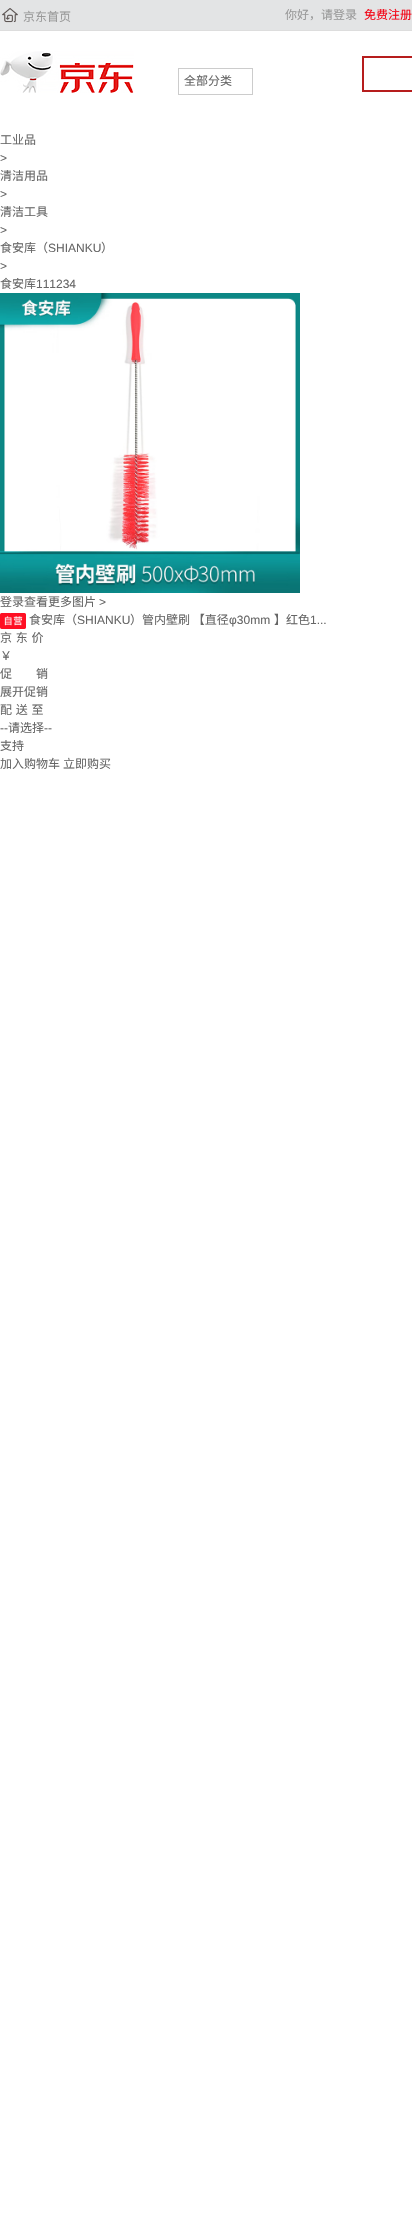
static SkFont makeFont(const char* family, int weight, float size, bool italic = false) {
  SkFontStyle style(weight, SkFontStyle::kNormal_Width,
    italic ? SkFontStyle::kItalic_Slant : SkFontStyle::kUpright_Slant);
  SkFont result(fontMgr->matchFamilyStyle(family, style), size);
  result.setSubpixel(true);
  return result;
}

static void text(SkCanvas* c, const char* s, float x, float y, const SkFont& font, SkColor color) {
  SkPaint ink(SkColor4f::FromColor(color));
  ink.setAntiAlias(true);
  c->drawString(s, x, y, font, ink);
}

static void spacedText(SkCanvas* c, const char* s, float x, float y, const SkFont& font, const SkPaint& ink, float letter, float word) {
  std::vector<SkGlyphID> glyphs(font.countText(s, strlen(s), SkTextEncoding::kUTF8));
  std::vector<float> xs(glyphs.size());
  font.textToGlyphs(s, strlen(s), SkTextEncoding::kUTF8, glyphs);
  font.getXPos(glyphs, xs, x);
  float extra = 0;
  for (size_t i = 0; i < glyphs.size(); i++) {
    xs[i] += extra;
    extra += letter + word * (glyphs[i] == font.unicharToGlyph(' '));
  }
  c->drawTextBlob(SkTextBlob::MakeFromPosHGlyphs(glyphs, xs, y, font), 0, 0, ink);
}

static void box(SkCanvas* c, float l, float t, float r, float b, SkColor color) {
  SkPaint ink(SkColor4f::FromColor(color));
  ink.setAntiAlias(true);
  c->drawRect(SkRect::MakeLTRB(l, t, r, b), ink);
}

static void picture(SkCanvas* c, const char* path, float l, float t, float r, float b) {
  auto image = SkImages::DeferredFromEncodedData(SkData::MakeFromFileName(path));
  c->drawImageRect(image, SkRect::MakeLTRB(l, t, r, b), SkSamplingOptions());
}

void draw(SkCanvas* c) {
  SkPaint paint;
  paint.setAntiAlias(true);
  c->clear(0xffffffff);
  box(c, 0, 0, 412, 30, 0xffe3e4e5);
  box(c, 0, 30, 412, 31, 0xffdddddd);
  picture(c, "img_01.png", 2, 8, 18, 23);
  SkFont face1 = makeFont("Noto Sans CJK SC", 400, 12);
  text(c, "京东首页", 23, 21, face1, 0xff999999);
  text(c, "你好，请登录", 285, 19, face1, 0xff999999);
  text(c, "免费注册", 364, 19, face1, 0xfff30213);
  picture(c, "img_02.png", 0, 51, 134, 93);
  paint.setStyle(SkPaint::kStroke_Style);
  paint.setStrokeWidth(1);
  paint.setColor(0xffcccccc);
  c->drawRect(SkRect::MakeLTRB(178.5f, 68.5f, 252.5f, 94.5f), paint);
  text(c, "全部分类", 184, 85, face1, 0xff666666);
  box(c, 362, 56, 412, 58, 0xffb61d1d);
  box(c, 362, 90, 412, 92, 0xffb61d1d);
  box(c, 362, 56, 364, 92, 0xffb61d1d);
  text(c, "工业品", 0, 144, face1, 0xff666666);
  SkFont face2 = makeFont("Liberation Sans", 400, 12);
  text(c, ">", 0, 162, face2, 0xff666666);
  text(c, "清洁用品", 0, 180, face1, 0xff666666);
  text(c, ">", 0, 198, face2, 0xff666666);
  text(c, "清洁工具", 0, 216, face1, 0xff666666);
  text(c, ">", 0, 234, face2, 0xff666666);
  text(c, "食安库（", 0, 252, face1, 0xff666666);
  text(c, "SHIANKU", 48, 252, face2, 0xff666666);
  text(c, "）", 101, 252, face1, 0xff666666);
  text(c, ">", 0, 270, face2, 0xff666666);
  text(c, "食安库", 0, 288, face1, 0xff666666);
  text(c, "111234", 36, 288, face2, 0xff666666);
  picture(c, "img_03.png", 0, 293, 300, 593);
  text(c, "登录查看更多图片", 0, 606, face1, 0xff666666);
  text(c, ">", 99, 606, face2, 0xff666666);
  picture(c, "img_04.png", 0, 613, 26, 629);
  text(c, "食安库（", 29, 624, face1, 0xff666666);
  text(c, "SHIANKU", 77, 624, face2, 0xff666666);
  text(c, "）管内壁刷 【直径", 130, 624, face1, 0xff666666);
  text(c, "φ30mm", 229, 624, face2, 0xff666666);
  text(c, "】红色", 274, 624, face1, 0xff666666);
  text(c, "1...", 310, 624, face2, 0xff666666);
  paint.setStyle(SkPaint::kFill_Style);
  paint.setColor(0xff666666);
  spacedText(c, "京 东 价", 0, 642, face1, paint, 0, 1);
  text(c, "￥", 0, 660, face1, 0xff666666);
  text(c, "促　　销", 0, 678, face1, 0xff666666);
  text(c, "展开促销", 0, 696, face1, 0xff666666);
  spacedText(c, "配 送 至", 0, 714, face1, paint, 0, 1);
  text(c, "--", 0, 732, face2, 0xff666666);
  text(c, "请选择", 8, 732, face1, 0xff666666);
  text(c, "--", 44, 732, face2, 0xff666666);
  text(c, "支持", 0, 750, face1, 0xff666666);
  text(c, "加入购物车", 0, 768, face1, 0xff666666);
  text(c, "立即购买", 63, 768, face1, 0xff666666);
}
